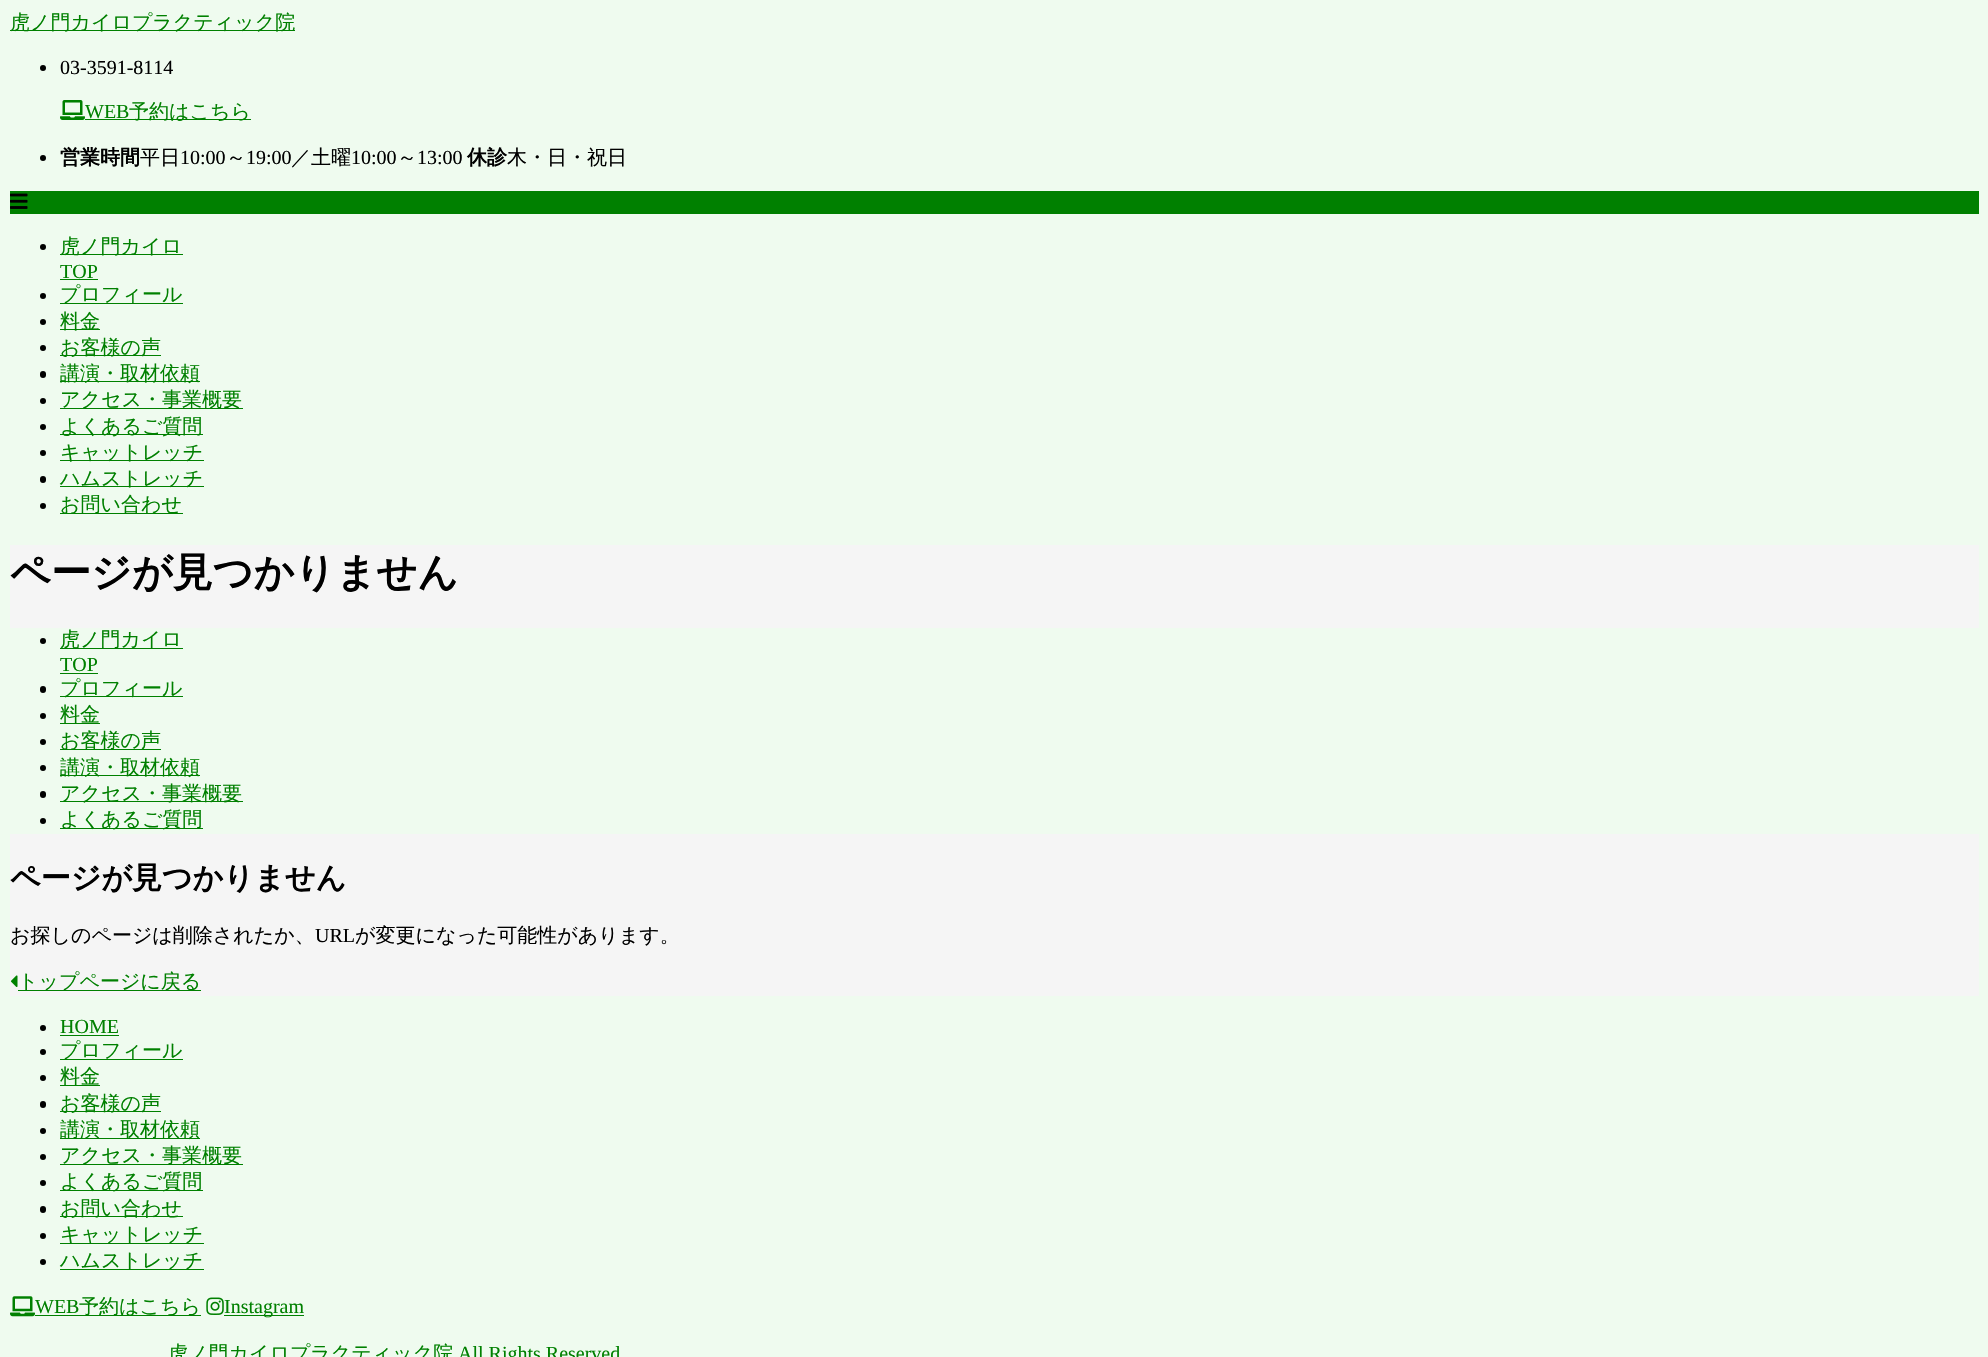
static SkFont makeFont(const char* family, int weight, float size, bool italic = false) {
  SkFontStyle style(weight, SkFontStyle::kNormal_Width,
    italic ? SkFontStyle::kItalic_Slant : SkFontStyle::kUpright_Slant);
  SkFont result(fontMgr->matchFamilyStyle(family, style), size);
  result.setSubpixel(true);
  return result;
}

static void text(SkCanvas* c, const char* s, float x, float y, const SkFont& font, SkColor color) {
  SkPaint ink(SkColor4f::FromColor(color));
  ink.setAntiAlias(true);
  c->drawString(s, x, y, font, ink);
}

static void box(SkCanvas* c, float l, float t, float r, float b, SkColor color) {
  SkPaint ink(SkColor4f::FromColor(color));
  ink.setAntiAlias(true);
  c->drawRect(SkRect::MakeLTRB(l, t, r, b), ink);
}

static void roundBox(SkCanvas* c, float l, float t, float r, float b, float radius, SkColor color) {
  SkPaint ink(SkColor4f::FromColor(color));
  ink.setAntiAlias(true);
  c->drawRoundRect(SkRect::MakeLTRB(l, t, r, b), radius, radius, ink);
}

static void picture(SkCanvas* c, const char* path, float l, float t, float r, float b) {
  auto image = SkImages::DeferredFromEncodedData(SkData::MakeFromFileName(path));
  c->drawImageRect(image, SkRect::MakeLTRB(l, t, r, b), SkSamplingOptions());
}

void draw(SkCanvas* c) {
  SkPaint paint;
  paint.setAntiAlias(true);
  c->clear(0xffeffbef);
  box(c, 10, 30, 295, 31, 0xff008000);
  SkFont face1 = makeFont("WenQuanYi Zen Hei", 500, 20);
  text(c, "虎ノ門カイロプラクティック院", 10, 29, face1, 0xff008000);
  paint.setColor(0xff000000);
  c->drawCircle(43, 68, 3, paint);
  SkFont face2 = makeFont("Liberation Serif", 400, 20);
  text(c, "03-3591-8114", 60, 74, face2, 0xff000000);
  picture(c, "img_01.png", 60, 100, 85, 120);
  text(c, "WEB", 85, 118, face2, 0xff008000);
  box(c, 85, 119, 251, 120, 0xff008000);
  text(c, "予約はこちら", 129, 118, face1, 0xff008000);
  c->drawCircle(43, 158, 3, paint);
  SkFont face3 = makeFont("WenQuanYi Zen Hei", 700, 20);
  text(c, "営業時間", 60, 164, face3, 0xff000000);
  text(c, "平日", 140, 164, face1, 0xff000000);
  text(c, "10:00", 180, 164, face2, 0xff000000);
  text(c, "～", 226, 164, face1, 0xff000000);
  text(c, "19:00", 246, 164, face2, 0xff000000);
  text(c, "／土曜", 291, 164, face1, 0xff000000);
  text(c, "10:00", 351, 164, face2, 0xff000000);
  text(c, "～", 397, 164, face1, 0xff000000);
  text(c, "13:00", 417, 164, face2, 0xff000000);
  text(c, "休診", 467, 164, face3, 0xff000000);
  text(c, "木・日・祝日", 507, 164, face1, 0xff000000);
  box(c, 10, 191, 1979, 214, 0xff008000);
  picture(c, "img_02.png", 10, 193, 28, 209);
  c->drawCircle(43, 247, 3, paint);
  box(c, 60, 254, 183, 255, 0xff008000);
  text(c, "虎ノ門カイロ", 60, 253, face1, 0xff008000);
  text(c, "TOP", 60, 278, face2, 0xff008000);
  box(c, 60, 279, 98, 280, 0xff008000);
  c->drawCircle(43, 296, 3, paint);
  box(c, 60, 303, 183, 304, 0xff008000);
  text(c, "プロフィール", 60, 301, face1, 0xff008000);
  c->drawCircle(43, 322, 3, paint);
  box(c, 60, 329, 100, 330, 0xff008000);
  text(c, "料金", 60, 328, face1, 0xff008000);
  c->drawCircle(43, 348, 3, paint);
  box(c, 60, 355, 161, 356, 0xff008000);
  text(c, "お客様の声", 60, 354, face1, 0xff008000);
  roundBox(c, 40, 371, 46, 378, 3, 0xff000000);
  box(c, 60, 381, 200, 382, 0xff008000);
  text(c, "講演・取材依頼", 60, 380, face1, 0xff008000);
  c->drawCircle(43, 401, 3, paint);
  box(c, 60, 408, 243, 409, 0xff008000);
  text(c, "アクセス・事業概要", 60, 406, face1, 0xff008000);
  c->drawCircle(43, 427, 3, paint);
  box(c, 60, 434, 203, 435, 0xff008000);
  text(c, "よくあるご質問", 60, 433, face1, 0xff008000);
  c->drawCircle(43, 453, 3, paint);
  box(c, 60, 460, 204, 461, 0xff008000);
  text(c, "キャットレッチ", 60, 459, face1, 0xff008000);
  roundBox(c, 40, 476, 46, 483, 3, 0xff000000);
  box(c, 60, 486, 204, 487, 0xff008000);
  text(c, "ハムストレッチ", 60, 485, face1, 0xff008000);
  c->drawCircle(43, 506, 3, paint);
  box(c, 60, 513, 183, 514, 0xff008000);
  text(c, "お問い合わせ", 60, 511, face1, 0xff008000);
  box(c, 10, 545, 1979, 996, 0xfff5f5f5);
  SkFont face4 = makeFont("WenQuanYi Zen Hei", 700, 40);
  text(c, "ページが見つかりません", 10, 586, face4, 0xff000000);
  box(c, 10, 628, 1979, 834, 0xffeffbef);
  c->drawCircle(43, 641, 3, paint);
  box(c, 60, 648, 183, 649, 0xff008000);
  text(c, "虎ノ門カイロ", 60, 646, face1, 0xff008000);
  text(c, "TOP", 60, 671, face2, 0xff008000);
  box(c, 60, 673, 98, 674, 0xff008000);
  roundBox(c, 40, 686, 46, 693, 3, 0xff000000);
  box(c, 60, 696, 183, 697, 0xff008000);
  text(c, "プロフィール", 60, 695, face1, 0xff008000);
  c->drawCircle(43, 716, 3, paint);
  box(c, 60, 723, 100, 724, 0xff008000);
  text(c, "料金", 60, 721, face1, 0xff008000);
  c->drawCircle(43, 742, 3, paint);
  box(c, 60, 749, 161, 750, 0xff008000);
  text(c, "お客様の声", 60, 747, face1, 0xff008000);
  c->drawCircle(43, 768, 3, paint);
  box(c, 60, 775, 200, 776, 0xff008000);
  text(c, "講演・取材依頼", 60, 774, face1, 0xff008000);
  roundBox(c, 40, 791, 46, 798, 3, 0xff000000);
  box(c, 60, 801, 243, 802, 0xff008000);
  text(c, "アクセス・事業概要", 60, 800, face1, 0xff008000);
  c->drawCircle(43, 821, 3, paint);
  box(c, 60, 828, 203, 829, 0xff008000);
  text(c, "よくあるご質問", 60, 826, face1, 0xff008000);
  SkFont face5 = makeFont("WenQuanYi Zen Hei", 700, 30);
  text(c, "ページが見つかりません", 10, 888, face5, 0xff000000);
  text(c, "お探しのページは削除されたか、", 10, 942, face1, 0xff000000);
  text(c, "URL", 315, 942, face2, 0xff000000);
  text(c, "が変更になった可能性があります。", 355, 942, face1, 0xff000000);
  picture(c, "img_03.png", 10, 975, 18, 987);
  box(c, 18, 990, 201, 991, 0xff008000);
  text(c, "トップページに戻る", 18, 988, face1, 0xff008000);
  c->drawCircle(43, 1028, 3, paint);
  text(c, "HOME", 60, 1033, face2, 0xff008000);
  box(c, 60, 1035, 119, 1036, 0xff008000);
  c->drawCircle(43, 1052, 3, paint);
  box(c, 60, 1059, 183, 1060, 0xff008000);
  text(c, "プロフィール", 60, 1057, face1, 0xff008000);
  c->drawCircle(43, 1078, 3, paint);
  box(c, 60, 1085, 100, 1086, 0xff008000);
  text(c, "料金", 60, 1083, face1, 0xff008000);
  roundBox(c, 40, 1101, 46, 1108, 3, 0xff000000);
  box(c, 60, 1111, 161, 1112, 0xff008000);
  text(c, "お客様の声", 60, 1110, face1, 0xff008000);
  c->drawCircle(43, 1131, 3, paint);
  box(c, 60, 1138, 200, 1139, 0xff008000);
  text(c, "講演・取材依頼", 60, 1136, face1, 0xff008000);
  c->drawCircle(43, 1157, 3, paint);
  box(c, 60, 1164, 243, 1165, 0xff008000);
  text(c, "アクセス・事業概要", 60, 1162, face1, 0xff008000);
  c->drawCircle(43, 1183, 3, paint);
  box(c, 60, 1190, 203, 1191, 0xff008000);
  text(c, "よくあるご質問", 60, 1188, face1, 0xff008000);
  roundBox(c, 40, 1206, 46, 1213, 3, 0xff000000);
  box(c, 60, 1216, 183, 1217, 0xff008000);
  text(c, "お問い合わせ", 60, 1215, face1, 0xff008000);
  c->drawCircle(43, 1236, 3, paint);
  box(c, 60, 1243, 204, 1244, 0xff008000);
  text(c, "キャットレッチ", 60, 1241, face1, 0xff008000);
  c->drawCircle(43, 1262, 3, paint);
  box(c, 60, 1269, 204, 1270, 0xff008000);
  text(c, "ハムストレッチ", 60, 1267, face1, 0xff008000);
  picture(c, "img_04.png", 10, 1296, 35, 1317);
  text(c, "WEB", 35, 1313, face2, 0xff008000);
  box(c, 35, 1315, 201, 1316, 0xff008000);
  text(c, "予約はこちら", 79, 1313, face1, 0xff008000);
  picture(c, "img_05.png", 206, 1297, 224, 1315);
  box(c, 224, 1315, 304, 1316, 0xff008000);
  text(c, "Instagram", 224, 1313, face2, 0xff008000);
  text(c, "虎ノ門カイロプラクティック院", 168, 1360, face1, 0xff008000);
  text(c, "All Rights Reserved", 458, 1360, face2, 0xff008000);
}
